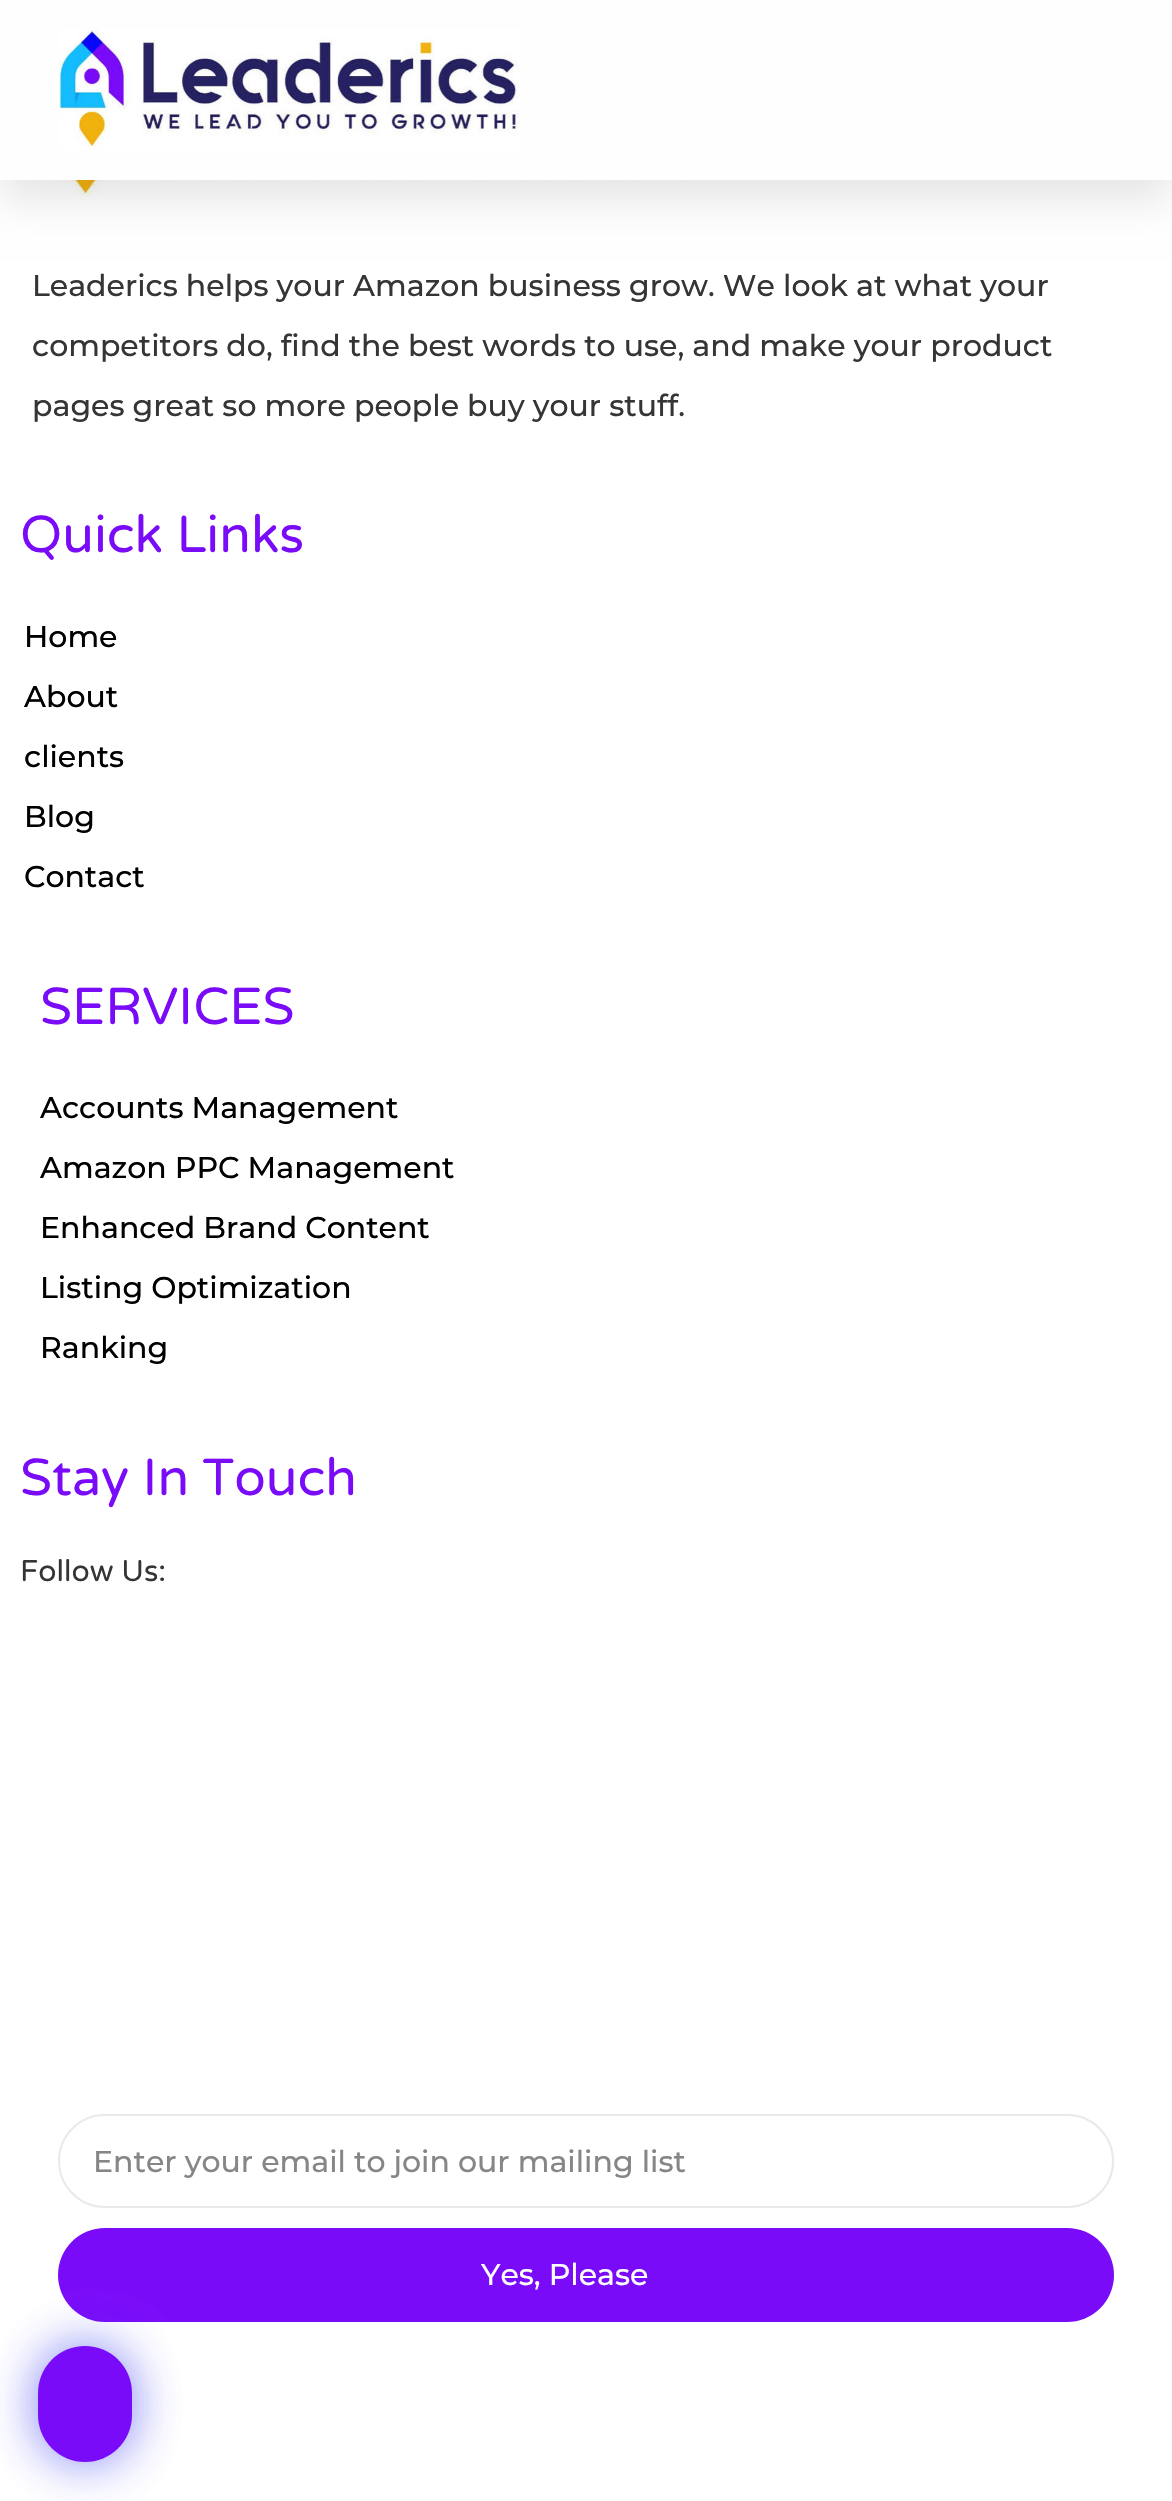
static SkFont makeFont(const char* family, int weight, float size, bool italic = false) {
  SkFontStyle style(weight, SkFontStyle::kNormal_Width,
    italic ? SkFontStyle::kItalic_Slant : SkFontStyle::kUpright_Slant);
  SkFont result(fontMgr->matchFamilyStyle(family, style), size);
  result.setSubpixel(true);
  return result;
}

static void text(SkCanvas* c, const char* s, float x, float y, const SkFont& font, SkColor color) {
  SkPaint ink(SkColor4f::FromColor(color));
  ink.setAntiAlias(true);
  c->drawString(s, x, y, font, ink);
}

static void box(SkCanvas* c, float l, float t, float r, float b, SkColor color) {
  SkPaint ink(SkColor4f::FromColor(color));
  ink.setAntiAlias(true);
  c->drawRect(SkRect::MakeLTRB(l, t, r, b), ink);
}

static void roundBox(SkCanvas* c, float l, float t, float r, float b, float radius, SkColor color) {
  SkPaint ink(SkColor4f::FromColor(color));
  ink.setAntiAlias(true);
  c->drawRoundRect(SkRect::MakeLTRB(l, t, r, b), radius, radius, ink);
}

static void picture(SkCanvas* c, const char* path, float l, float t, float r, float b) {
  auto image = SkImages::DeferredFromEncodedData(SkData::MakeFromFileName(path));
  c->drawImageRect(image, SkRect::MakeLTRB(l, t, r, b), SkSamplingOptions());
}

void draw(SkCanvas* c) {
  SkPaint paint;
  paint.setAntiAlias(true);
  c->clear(0xffffffff);
  picture(c, "img_02.png", 38, 180, 696, 199);
  paint.setColor(0x1a000000);
  paint.setMaskFilter(SkMaskFilter::MakeBlur(kNormal_SkBlurStyle, 20));
  c->drawRect(SkRect::MakeLTRB(0, 20, 1172, 200), paint);
  paint.setMaskFilter(nullptr);
  box(c, 0, 0, 1172, 180, 0xfffffefe);
  picture(c, "img_01.png", 59, 28, 520, 150);
  SkFont face1 = makeFont("Montserrat", 500, 30);
  text(c, "Leaderics helps your Amazon business grow. We look at what your", 32, 296, face1, 0xff353535);
  text(c, "competitors do, find the best words to use, and make your product", 32, 356, face1, 0xff353535);
  text(c, "pages great so more people buy your stuff.", 32, 416, face1, 0xff353535);
  SkFont face2 = makeFont("Varela Round", 400, 52);
  text(c, "Quick Links", 20, 552, face2, 0xff790bf9);
  text(c, "Home", 24, 647, face1, 0xff000000);
  text(c, "About", 24, 707, face1, 0xff000000);
  text(c, "clients", 24, 767, face1, 0xff000000);
  text(c, "Blog", 24, 827, face1, 0xff000000);
  text(c, "Contact", 24, 887, face1, 0xff000000);
  text(c, "SERVICES", 40, 1024, face2, 0xff790bf9);
  text(c, "Accounts Management", 40, 1118, face1, 0xff000000);
  text(c, "Amazon PPC Management", 40, 1178, face1, 0xff000000);
  text(c, "Enhanced Brand Content", 40, 1238, face1, 0xff000000);
  text(c, "Listing Optimization", 40, 1298, face1, 0xff000000);
  text(c, "Ranking", 40, 1358, face1, 0xff000000);
  text(c, "Stay In Touch", 20, 1495, face2, 0xff790bf9);
  SkFont face3 = makeFont("Varela Round", 400, 30);
  text(c, "Follow Us:", 20, 1581, face3, 0xff353535);
  paint.setStyle(SkPaint::kStroke_Style);
  paint.setStrokeWidth(2);
  paint.setColor(0xffe9e9e9);
  c->drawRoundRect(SkRect::MakeLTRB(59, 2115, 1113, 2207), 46, 46, paint);
  text(c, "Enter your email to join our mailing list", 93, 2172, face1, 0xff868686);
  roundBox(c, 58, 2228, 1114, 2322, 47, 0xff790bf9);
  text(c, "Yes, Please", 481, 2285, face1, 0xfffffefe);
  paint.setStyle(SkPaint::kFill_Style);
  paint.setColor(0x593538f0);
  paint.setMaskFilter(SkMaskFilter::MakeBlur(kNormal_SkBlurStyle, 25));
  c->drawRoundRect(SkRect::MakeLTRB(38, 2346, 132, 2462), 47, 47, paint);
  paint.setMaskFilter(nullptr);
  paint.setMaskFilter(SkMaskFilter::MakeBlur(kNormal_SkBlurStyle, 25));
  c->drawRoundRect(SkRect::MakeLTRB(38, 2346, 132, 2462), 47, 47, paint);
  paint.setMaskFilter(nullptr);
  roundBox(c, 38, 2346, 132, 2462, 47, 0xff790bf9);
}
